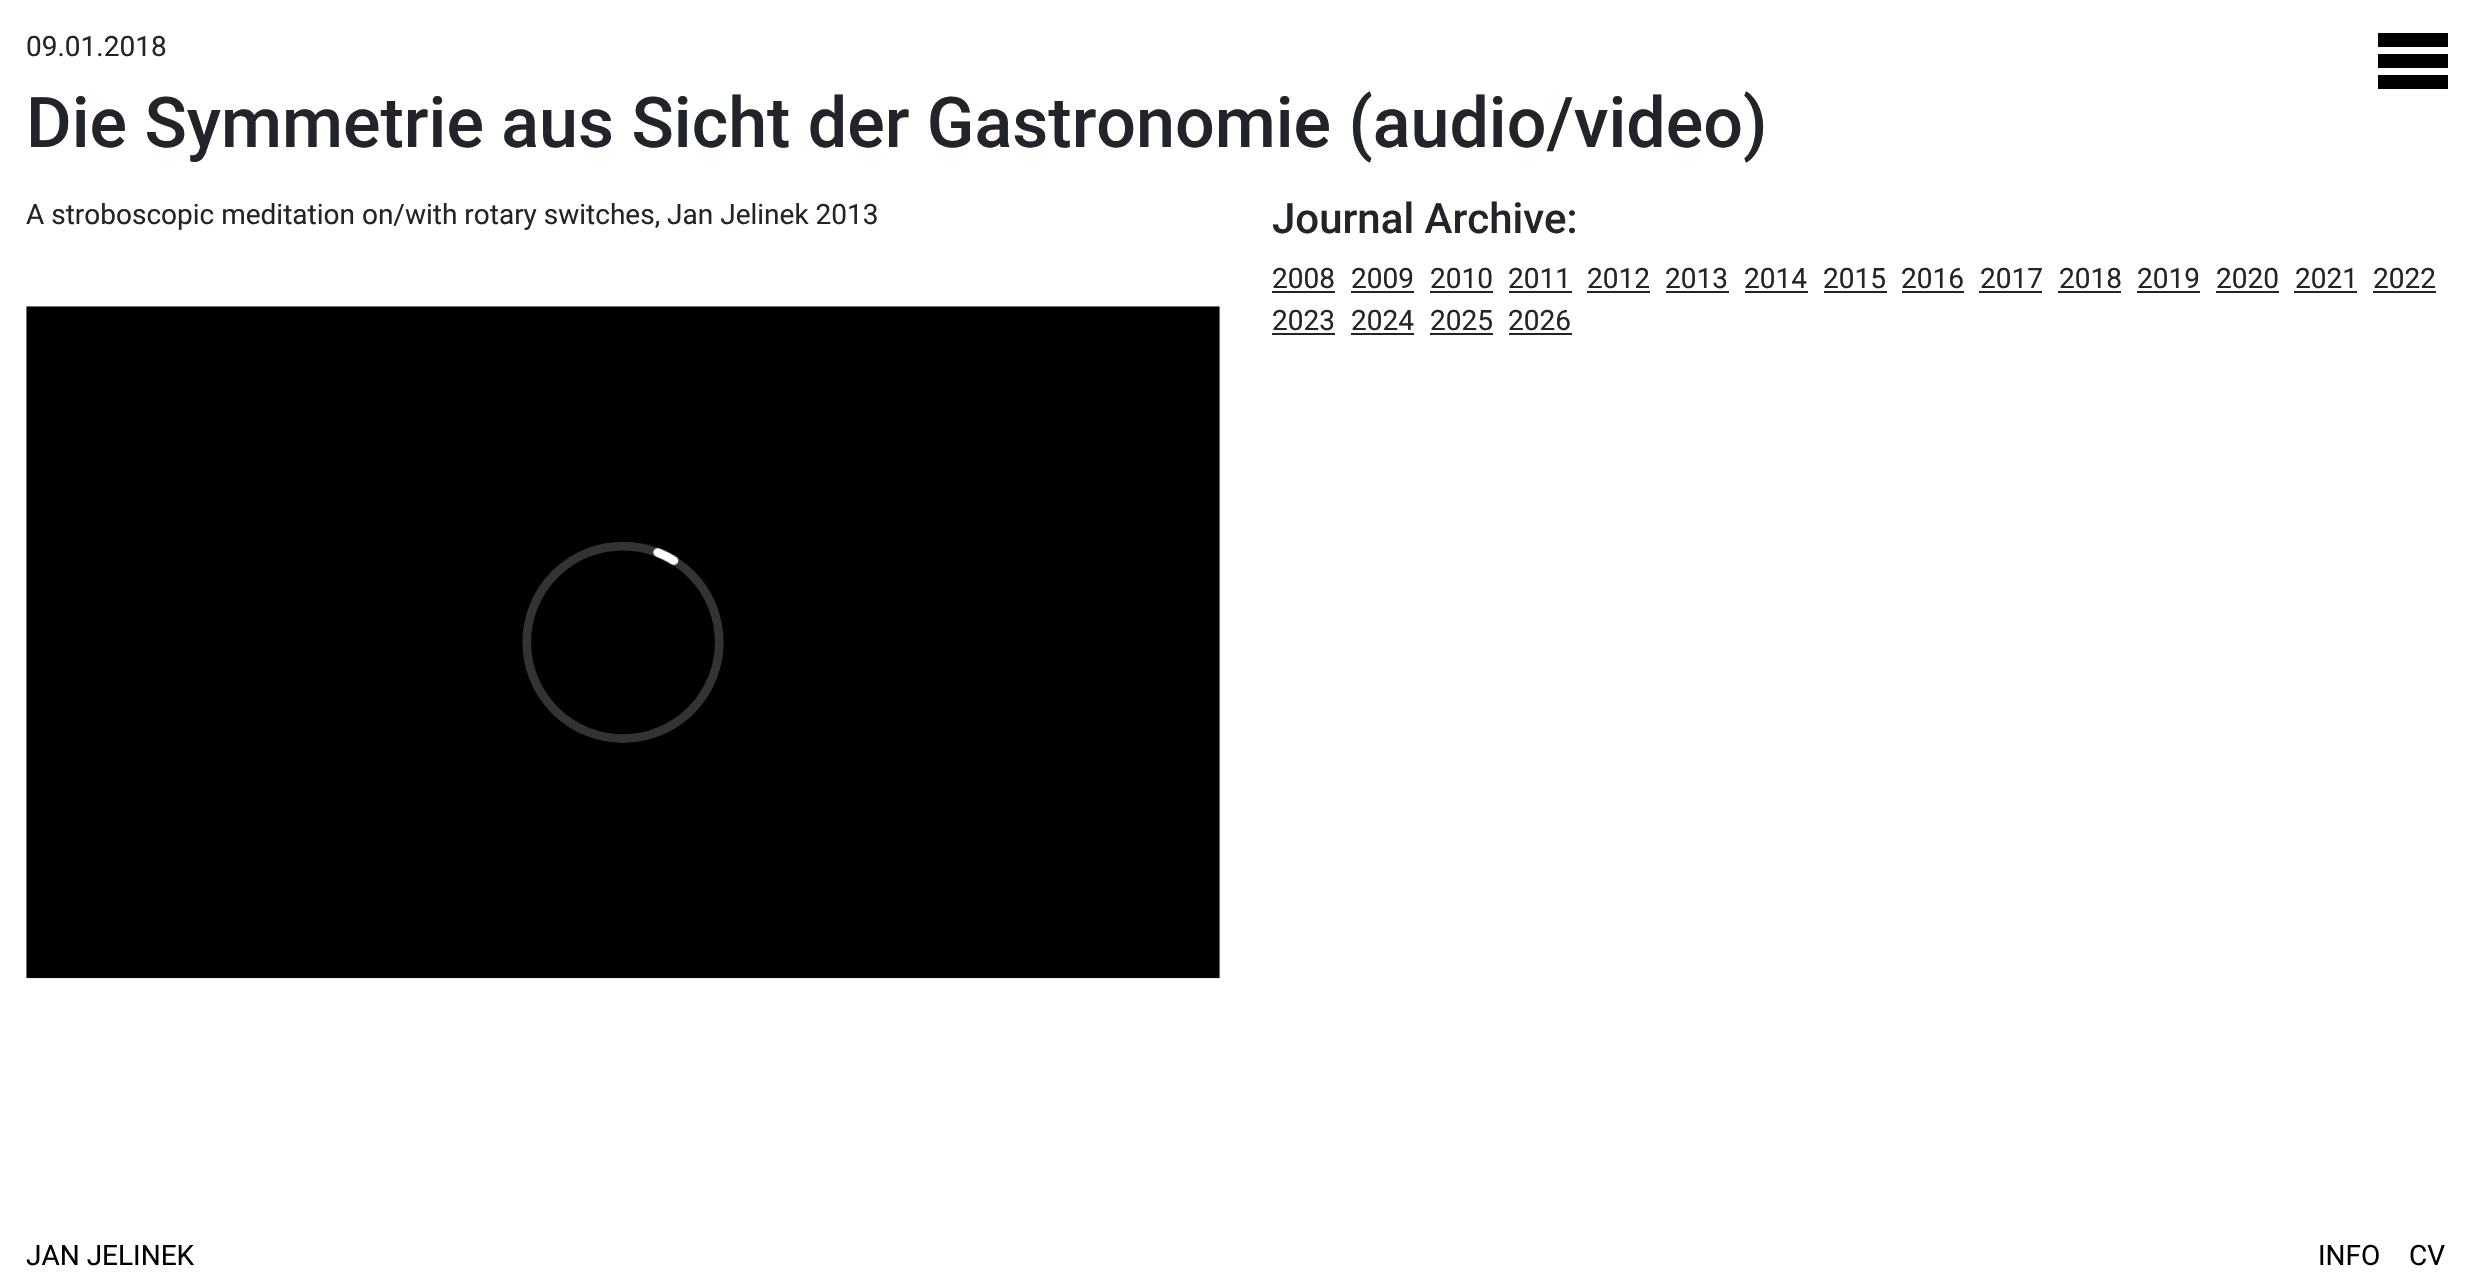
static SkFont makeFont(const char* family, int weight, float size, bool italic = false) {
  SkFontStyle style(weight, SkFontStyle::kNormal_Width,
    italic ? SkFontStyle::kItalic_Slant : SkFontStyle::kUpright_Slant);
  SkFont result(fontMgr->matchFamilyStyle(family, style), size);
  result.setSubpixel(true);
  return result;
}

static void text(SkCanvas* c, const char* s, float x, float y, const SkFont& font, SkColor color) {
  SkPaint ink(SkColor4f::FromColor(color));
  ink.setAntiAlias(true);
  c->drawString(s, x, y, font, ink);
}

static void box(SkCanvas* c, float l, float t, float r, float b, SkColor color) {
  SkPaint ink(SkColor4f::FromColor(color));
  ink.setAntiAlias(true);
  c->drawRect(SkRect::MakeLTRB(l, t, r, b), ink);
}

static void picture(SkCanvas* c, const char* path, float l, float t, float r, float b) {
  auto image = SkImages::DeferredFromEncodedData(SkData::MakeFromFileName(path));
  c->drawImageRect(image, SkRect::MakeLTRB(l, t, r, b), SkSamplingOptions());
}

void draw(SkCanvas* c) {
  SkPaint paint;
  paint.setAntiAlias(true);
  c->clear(0xffffffff);
  box(c, 2378, 33, 2448, 47, 0xff000000);
  box(c, 2378, 54, 2448, 68, 0xff000000);
  box(c, 2378, 75, 2448, 89, 0xff000000);
  SkFont face1 = makeFont("Roboto", 400, 28);
  text(c, "09.01.2018", 26, 56, face1, 0xff212529);
  SkFont face2 = makeFont("Roboto", 500, 70);
  text(c, "Die Symmetrie aus Sicht der Gastronomie (audio/video)", 26, 147, face2, 0xff212529);
  text(c, "A stroboscopic meditation on/with rotary switches, Jan Jelinek 2013", 26, 224, face1, 0xff212529);
  picture(c, "img_01.png", 26, 306, 1220, 979);
  SkFont face3 = makeFont("Roboto", 500, 42);
  text(c, "Journal Archive:", 1272, 233, face3, 0xff212529);
  text(c, "2008", 1272, 288, face1, 0xff212529);
  box(c, 1272, 291, 1335, 293, 0xff212529);
  text(c, "2009", 1351, 288, face1, 0xff212529);
  box(c, 1351, 291, 1414, 293, 0xff212529);
  text(c, "2010", 1430, 288, face1, 0xff212529);
  box(c, 1430, 291, 1493, 293, 0xff212529);
  text(c, "2011", 1508, 288, face1, 0xff212529);
  box(c, 1509, 291, 1572, 293, 0xff212529);
  text(c, "2012", 1587, 288, face1, 0xff212529);
  box(c, 1587, 291, 1650, 293, 0xff212529);
  text(c, "2013", 1665, 288, face1, 0xff212529);
  box(c, 1666, 291, 1729, 293, 0xff212529);
  text(c, "2014", 1744, 288, face1, 0xff212529);
  box(c, 1745, 291, 1808, 293, 0xff212529);
  text(c, "2015", 1823, 288, face1, 0xff212529);
  box(c, 1824, 291, 1887, 293, 0xff212529);
  text(c, "2016", 1901, 288, face1, 0xff212529);
  box(c, 1902, 291, 1964, 293, 0xff212529);
  text(c, "2017", 1980, 288, face1, 0xff212529);
  box(c, 1979, 291, 2042, 293, 0xff212529);
  text(c, "2018", 2059, 288, face1, 0xff212529);
  box(c, 2058, 291, 2121, 293, 0xff212529);
  text(c, "2019", 2137, 288, face1, 0xff212529);
  box(c, 2137, 291, 2200, 293, 0xff212529);
  text(c, "2020", 2216, 288, face1, 0xff212529);
  box(c, 2216, 291, 2279, 293, 0xff212529);
  text(c, "2021", 2295, 288, face1, 0xff212529);
  box(c, 2294, 291, 2357, 293, 0xff212529);
  text(c, "2022", 2373, 288, face1, 0xff212529);
  box(c, 2373, 291, 2436, 293, 0xff212529);
  text(c, "2023", 1272, 330, face1, 0xff212529);
  box(c, 1272, 333, 1335, 335, 0xff212529);
  text(c, "2024", 1351, 330, face1, 0xff212529);
  box(c, 1351, 333, 1414, 335, 0xff212529);
  text(c, "2025", 1430, 330, face1, 0xff212529);
  box(c, 1430, 333, 1493, 335, 0xff212529);
  text(c, "2026", 1508, 330, face1, 0xff212529);
  box(c, 1509, 333, 1572, 335, 0xff212529);
  text(c, "JAN JELINEK", 26, 1265, face1, 0xff000000);
  text(c, "INFO", 2318, 1265, face1, 0xff000000);
  text(c, "CV", 2409, 1265, face1, 0xff000000);
}
